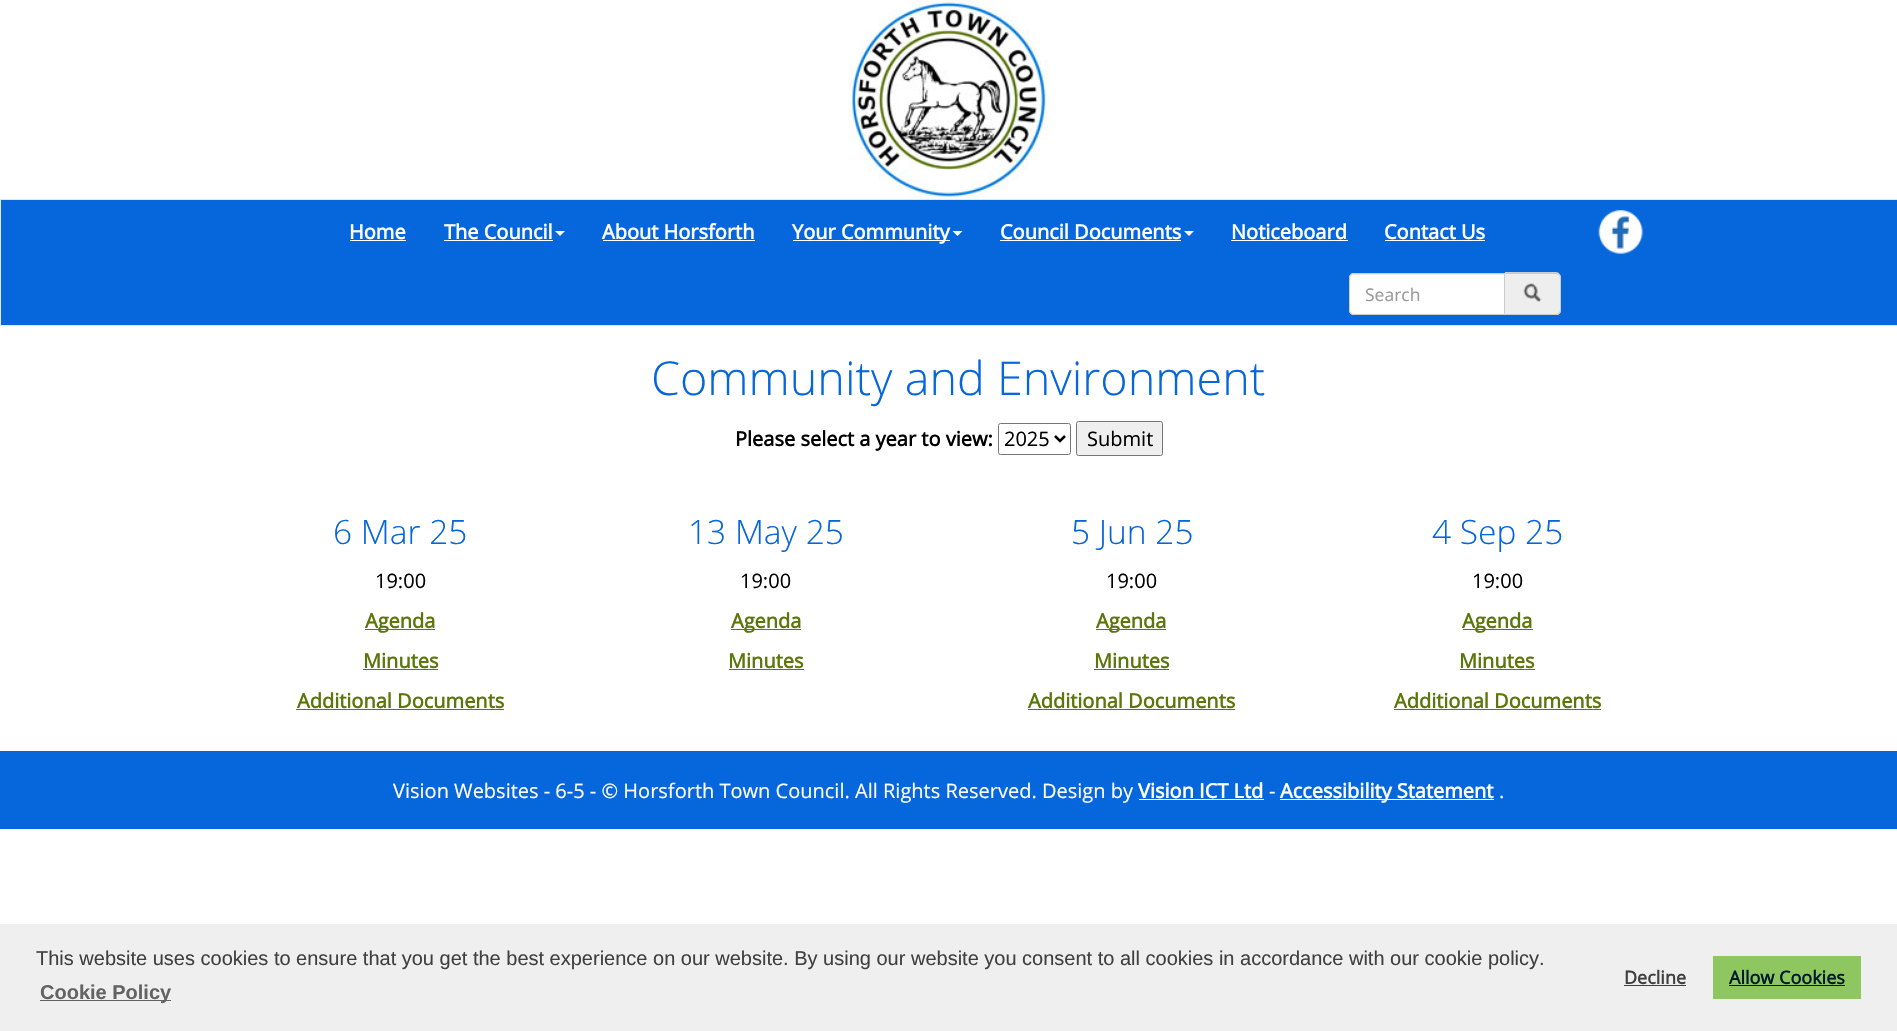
static SkFont makeFont(const char* family, int weight, float size, bool italic = false) {
  SkFontStyle style(weight, SkFontStyle::kNormal_Width,
    italic ? SkFontStyle::kItalic_Slant : SkFontStyle::kUpright_Slant);
  SkFont result(fontMgr->matchFamilyStyle(family, style), size);
  result.setSubpixel(true);
  return result;
}

static void text(SkCanvas* c, const char* s, float x, float y, const SkFont& font, SkColor color) {
  SkPaint ink(SkColor4f::FromColor(color));
  ink.setAntiAlias(true);
  c->drawString(s, x, y, font, ink);
}

static void box(SkCanvas* c, float l, float t, float r, float b, SkColor color) {
  SkPaint ink(SkColor4f::FromColor(color));
  ink.setAntiAlias(true);
  c->drawRect(SkRect::MakeLTRB(l, t, r, b), ink);
}

static void picture(SkCanvas* c, const char* path, float l, float t, float r, float b) {
  auto image = SkImages::DeferredFromEncodedData(SkData::MakeFromFileName(path));
  c->drawImageRect(image, SkRect::MakeLTRB(l, t, r, b), SkSamplingOptions());
}

void draw(SkCanvas* c) {
  SkPaint paint;
  paint.setAntiAlias(true);
  c->clear(0xffffffff);
  picture(c, "img_01.png", 848, 0, 1049, 199);
  paint.setColor(0xff0666dc);
  c->drawRect(SkRect::MakeLTRB(0.5f, 199.5f, 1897.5f, 325.5f), paint);
  paint.setStyle(SkPaint::kStroke_Style);
  paint.setStrokeWidth(1);
  paint.setColor(0xffe7e7e7);
  c->drawRect(SkRect::MakeLTRB(0.5f, 199.5f, 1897.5f, 325.5f), paint);
  SkFont face1 = makeFont("Open Sans", 700, 20);
  text(c, "Home", 349, 239, face1, 0xffffffff);
  box(c, 350, 240, 406, 241, 0xffffffff);
  text(c, "The Council", 444, 239, face1, 0xffffffff);
  box(c, 444, 240, 553, 241, 0xffffffff);
  paint.setStyle(SkPaint::kFill_Style);
  paint.setColor(0xffffffff);
  c->drawPath(SkPathBuilder().moveTo(555, 231).lineTo(565, 231).lineTo(560, 236).close().detach(), paint);
  text(c, "About Horsforth", 602, 239, face1, 0xffffffff);
  box(c, 603, 240, 755, 241, 0xffffffff);
  box(c, 793, 240, 950, 241, 0xffffffff);
  text(c, "Your Community", 792, 239, face1, 0xffffffff);
  c->drawPath(SkPathBuilder().moveTo(952.5f, 231).lineTo(962.5f, 231).lineTo(957.5f, 236).close().detach(), paint);
  text(c, "Council Documents", 1000, 239, face1, 0xffffffff);
  box(c, 1000, 240, 1181, 241, 0xffffffff);
  c->drawPath(SkPathBuilder().moveTo(1184, 231).lineTo(1194, 231).lineTo(1189, 236).close().detach(), paint);
  text(c, "Noticeboard", 1231, 239, face1, 0xffffffff);
  box(c, 1231, 240, 1348, 241, 0xffffffff);
  text(c, "Contact Us", 1384, 239, face1, 0xffffffff);
  box(c, 1385, 240, 1485, 241, 0xffffffff);
  picture(c, "img_02.png", 1598, 210, 1643, 254);
  c->drawPath(SkPathBuilder().moveTo(1354, 273).lineTo(1505, 273).lineTo(1505, 315).lineTo(1354, 315).cubicTo(1351, 315, 1349, 313, 1349, 310).lineTo(1349, 278).cubicTo(1349, 275, 1351, 273, 1354, 273).close().detach(), paint);
  paint.setColor(0xffececec);
  c->drawPath(SkPathBuilder().moveTo(1354, 275).lineTo(1504, 275).lineTo(1504, 274).lineTo(1354, 274).cubicTo(1351, 274, 1350, 276, 1350, 279).cubicTo(1350, 277, 1352, 275, 1354, 275).close().detach(), paint);
  paint.setStyle(SkPaint::kStroke_Style);
  paint.setColor(0xffcccccc);
  c->drawPath(SkPathBuilder().moveTo(1354, 273.5f).lineTo(1504.5f, 273.5f).lineTo(1504.5f, 314.5f).lineTo(1354, 314.5f).cubicTo(1351.5f, 314.5f, 1349.5f, 312.5f, 1349.5f, 310).lineTo(1349.5f, 278).cubicTo(1349.5f, 275.5f, 1351.5f, 273.5f, 1354, 273.5f).close().detach(), paint);
  SkFont face2 = makeFont("Open Sans", 400, 17.5f);
  text(c, "Search", 1365, 301, face2, 0xff999999);
  paint.setStyle(SkPaint::kFill_Style);
  paint.setColor(0xffeeeeee);
  c->drawPath(SkPathBuilder().moveTo(1505, 273).lineTo(1556, 273).cubicTo(1559, 273, 1561, 275, 1561, 278).lineTo(1561, 310).cubicTo(1561, 313, 1559, 315, 1556, 315).lineTo(1505, 315).close().detach(), paint);
  paint.setColor(0xffcccccc);
  c->drawPath(SkPathBuilder(SkPathFillType::kEvenOdd).moveTo(1505, 272).lineTo(1556, 272).cubicTo(1559, 272, 1561, 275, 1561, 278).lineTo(1561, 310).cubicTo(1561, 313, 1559, 315, 1556, 315).lineTo(1505, 315).close().moveTo(1505, 274).lineTo(1556, 274).cubicTo(1558, 274, 1560, 275, 1560, 278).lineTo(1560, 310).cubicTo(1560, 312, 1558, 314, 1556, 314).lineTo(1505, 314).close().detach(), paint);
  picture(c, "img_03.png", 1520, 283, 1542, 302);
  SkFont face3 = makeFont("Open Sans", 300, 46.7f);
  text(c, "Community and Environment", 651, 395, face3, 0xff0666dc);
  text(c, "Please select a year to view:", 735, 446, face1, 0xff000000);
  paint.setStyle(SkPaint::kStroke_Style);
  paint.setColor(0xff767676);
  c->drawRoundRect(SkRect::MakeLTRB(998.5f, 423.5f, 1070.5f, 454.5f), 2, 2, paint);
  paint.setStrokeWidth(2.5f);
  paint.setColor(0xff000000);
  c->drawPath(SkPathBuilder().moveTo(1055, 436).lineTo(1060, 441).lineTo(1065, 436).detach(), paint);
  SkFont face4 = makeFont("Open Sans", 400, 20);
  text(c, "2025", 1004, 446, face4, 0xff000000);
  paint.setStyle(SkPaint::kFill_Style);
  paint.setColor(0xffefefef);
  c->drawRoundRect(SkRect::MakeLTRB(1076.5f, 421.5f, 1162.5f, 455.5f), 2, 2, paint);
  paint.setStyle(SkPaint::kStroke_Style);
  paint.setStrokeWidth(1);
  paint.setColor(0xff767676);
  c->drawRoundRect(SkRect::MakeLTRB(1076.5f, 421.5f, 1162.5f, 455.5f), 2, 2, paint);
  text(c, "Submit", 1087, 446, face4, 0xff000000);
  SkFont face5 = makeFont("Open Sans", 300, 33.5f);
  text(c, "6 Mar 25", 333, 544, face5, 0xff0666dc);
  text(c, "19:00", 375, 588, face4, 0xff000000);
  box(c, 365, 629, 435, 630, 0xff5b7709);
  text(c, "Agenda", 365, 628, face1, 0xff5b7709);
  text(c, "Minutes", 363, 668, face1, 0xff5b7709);
  box(c, 363, 669, 438, 670, 0xff5b7709);
  text(c, "Additional Documents", 297, 708, face1, 0xff5b7709);
  box(c, 296, 709, 504, 710, 0xff5b7709);
  text(c, "13 May 25", 688, 544, face5, 0xff0666dc);
  text(c, "19:00", 740, 588, face4, 0xff000000);
  box(c, 731, 629, 801, 630, 0xff5b7709);
  text(c, "Agenda", 731, 628, face1, 0xff5b7709);
  text(c, "Minutes", 728, 668, face1, 0xff5b7709);
  box(c, 729, 669, 804, 670, 0xff5b7709);
  text(c, "5 Jun 25", 1071, 544, face5, 0xff0666dc);
  text(c, "19:00", 1106, 588, face4, 0xff000000);
  box(c, 1096, 629, 1166, 630, 0xff5b7709);
  text(c, "Agenda", 1096, 628, face1, 0xff5b7709);
  text(c, "Minutes", 1094, 668, face1, 0xff5b7709);
  box(c, 1094, 669, 1169, 670, 0xff5b7709);
  text(c, "Additional Documents", 1028, 708, face1, 0xff5b7709);
  box(c, 1028, 709, 1235, 710, 0xff5b7709);
  text(c, "4 Sep 25", 1432, 544, face5, 0xff0666dc);
  text(c, "19:00", 1472, 588, face4, 0xff000000);
  box(c, 1463, 629, 1533, 630, 0xff5b7709);
  text(c, "Agenda", 1462, 628, face1, 0xff5b7709);
  text(c, "Minutes", 1459, 668, face1, 0xff5b7709);
  box(c, 1460, 669, 1535, 670, 0xff5b7709);
  text(c, "Additional Documents", 1394, 708, face1, 0xff5b7709);
  box(c, 1394, 709, 1601, 710, 0xff5b7709);
  box(c, 0, 751, 1897, 829, 0xff0666dc);
  text(c, "Vision Websites - 6-5 - © Horsforth Town Council. All Rights Reserved. Design by", 393, 798, face4, 0xffffffff);
  text(c, "Vision ICT Ltd", 1138, 798, face1, 0xffffffff);
  box(c, 1139, 799, 1264, 800, 0xffffffff);
  text(c, "-", 1269, 798, face4, 0xffffffff);
  box(c, 1280, 799, 1494, 800, 0xffffffff);
  text(c, "Accessibility Statement", 1280, 798, face1, 0xffffffff);
  text(c, ".", 1499, 798, face4, 0xffffffff);
  box(c, 0, 924, 1897, 1031, 0xffefefef);
  SkFont face6 = makeFont("Liberation Sans", 400, 20);
  text(c, "This website uses cookies to ensure that you get the best experience on our website. By using our website you consent to all cookies in accordance with our cookie policy.", 36, 965, face6, 0xff404040);
  box(c, 40, 1000, 171, 1001, 0xff636363);
  SkFont face7 = makeFont("Liberation Sans", 700, 20);
  text(c, "Cookie Policy", 40, 999, face7, 0xff636363);
  SkFont face8 = makeFont("Open Sans", 700, 18);
  text(c, "Decline", 1624, 984, face8, 0xff404040);
  box(c, 1624, 985, 1686, 986, 0xff404040);
  box(c, 1713, 956, 1861, 999, 0xff8ec760);
  text(c, "Allow Cookies", 1729, 984, face8, 0xff00182e);
  box(c, 1729, 985, 1845, 986, 0xff00182e);
}
